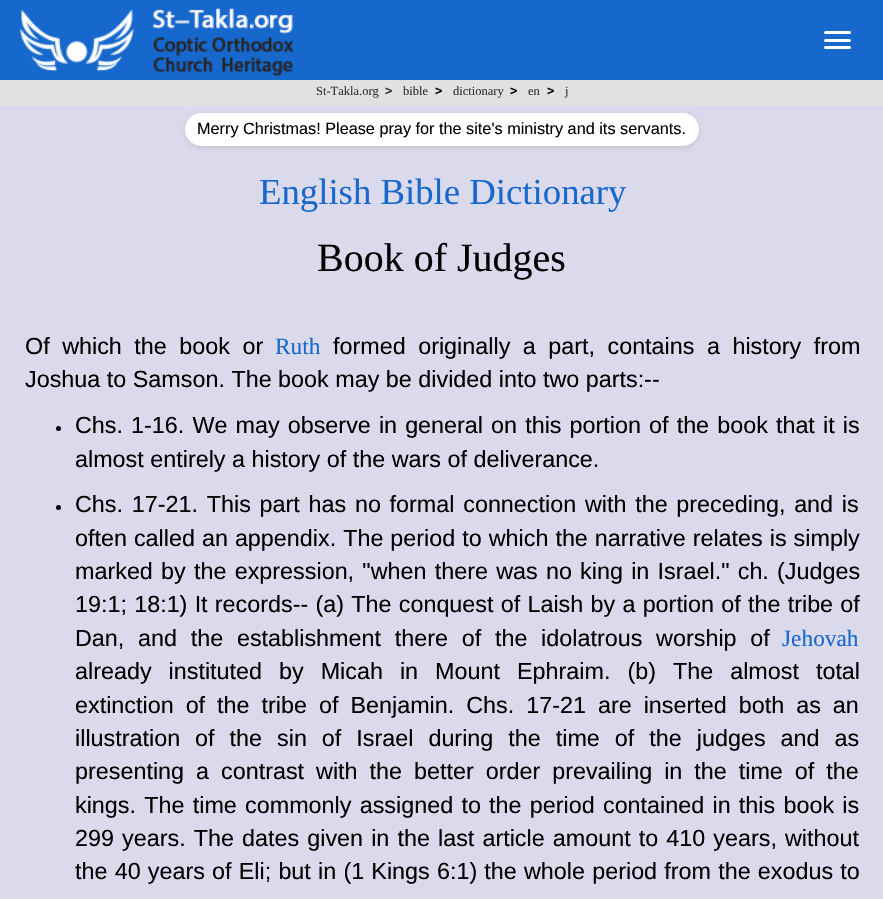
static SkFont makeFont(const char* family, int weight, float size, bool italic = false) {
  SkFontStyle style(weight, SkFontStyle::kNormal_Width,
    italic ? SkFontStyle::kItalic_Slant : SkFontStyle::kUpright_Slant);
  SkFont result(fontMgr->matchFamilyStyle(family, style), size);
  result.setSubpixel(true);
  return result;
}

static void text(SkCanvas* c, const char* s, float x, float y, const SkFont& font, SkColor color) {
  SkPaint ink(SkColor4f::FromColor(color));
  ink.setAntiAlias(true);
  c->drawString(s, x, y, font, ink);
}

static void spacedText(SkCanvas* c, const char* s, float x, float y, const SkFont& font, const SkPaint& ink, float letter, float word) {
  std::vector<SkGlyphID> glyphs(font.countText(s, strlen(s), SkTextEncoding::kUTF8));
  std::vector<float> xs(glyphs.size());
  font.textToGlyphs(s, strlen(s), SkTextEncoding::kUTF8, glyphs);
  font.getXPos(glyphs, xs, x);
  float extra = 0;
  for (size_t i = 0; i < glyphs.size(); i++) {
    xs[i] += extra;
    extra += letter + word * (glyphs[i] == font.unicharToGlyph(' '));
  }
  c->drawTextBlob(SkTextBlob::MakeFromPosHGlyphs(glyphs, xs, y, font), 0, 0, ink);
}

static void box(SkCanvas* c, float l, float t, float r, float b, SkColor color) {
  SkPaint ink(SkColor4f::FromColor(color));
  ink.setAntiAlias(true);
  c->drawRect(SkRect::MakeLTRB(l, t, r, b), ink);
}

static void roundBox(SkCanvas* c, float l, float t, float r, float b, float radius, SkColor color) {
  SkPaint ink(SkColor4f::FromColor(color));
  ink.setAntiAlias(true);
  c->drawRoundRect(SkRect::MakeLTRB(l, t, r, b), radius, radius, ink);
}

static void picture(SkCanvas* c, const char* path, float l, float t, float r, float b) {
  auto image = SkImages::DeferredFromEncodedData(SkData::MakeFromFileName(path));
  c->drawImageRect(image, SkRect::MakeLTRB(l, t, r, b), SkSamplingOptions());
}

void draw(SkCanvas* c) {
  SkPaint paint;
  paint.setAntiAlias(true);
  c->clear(0xffdbdaec);
  box(c, 0, 0, 883, 80, 0xff1668cd);
  picture(c, "img_01.png", 19, 8, 294, 77);
  roundBox(c, 824, 31, 851, 34, 1.5f, 0xffffffff);
  roundBox(c, 824, 39, 851, 42, 1.5f, 0xffffffff);
  roundBox(c, 824, 46, 851, 49, 1.5f, 0xffffffff);
  box(c, 0, 80, 883, 106, 0xffe1e1e1);
  SkFont face1 = makeFont("Liberation Serif", 400, 12.5f);
  text(c, "St-Takla.org", 316, 95, face1, 0xff303030);
  SkFont face2 = makeFont("Liberation Sans", 700, 12.5f);
  text(c, ">", 385, 95, face2, 0xff303030);
  text(c, "bible", 403, 95, face1, 0xff303030);
  text(c, ">", 435, 95, face2, 0xff000000);
  text(c, "dictionary", 453, 95, face1, 0xff303030);
  text(c, ">", 510, 95, face2, 0xff000000);
  text(c, "en", 528, 95, face1, 0xff303030);
  text(c, ">", 547, 95, face2, 0xff000000);
  text(c, "j", 565, 95, face1, 0xff303030);
  paint.setColor(0x1a000000);
  paint.setMaskFilter(SkMaskFilter::MakeBlur(kNormal_SkBlurStyle, 2));
  c->drawRoundRect(SkRect::MakeLTRB(185, 114, 699, 148), 17, 17, paint);
  paint.setMaskFilter(nullptr);
  roundBox(c, 185, 113, 699, 146, 16.5f, 0xffffffff);
  SkFont face3 = makeFont("Liberation Sans", 400, 16.25f);
  text(c, "Merry Christmas! Please pray for the site's ministry and its servants.", 197, 134, face3, 0xff000000);
  SkFont face4 = makeFont("Liberation Serif", 400, 36.75f);
  text(c, "English Bible Dictionary", 259, 204, face4, 0xff1668cd);
  SkFont face5 = makeFont("Liberation Serif", 400, 40);
  text(c, "Book of Judges", 317, 271, face5, 0xff000000);
  SkFont face6 = makeFont("Liberation Sans", 400, 23.35f);
  paint.setColor(0xff000000);
  spacedText(c, "Of which the book or", 25, 354, face6, paint, 0, 6);
  SkFont face7 = makeFont("Liberation Serif", 400, 23.35f);
  text(c, "Ruth", 275, 354, face7, 0xff1668cd);
  spacedText(c, "formed originally a part, contains a history from", 333, 354, face6, paint, 0, 6);
  text(c, "Joshua to Samson. The book may be divided into two parts:--", 25, 387, face6, 0xff000000);
  c->drawCircle(58.5f, 428.5f, 2.5f, paint);
  spacedText(c, "Chs. 1-16. We may observe in general on this portion of the book that it is", 75, 433, face6, paint, 0, 1.6f);
  text(c, "almost entirely a history of the wars of deliverance.", 75, 467, face6, 0xff000000);
  c->drawCircle(58.5f, 507.5f, 2.5f, paint);
  spacedText(c, "Chs. 17-21. This part has no formal connection with the preceding, and is", 75, 512, face6, paint, 0, 2.25f);
  spacedText(c, "often called an appendix. The period to which the narrative relates is simply", 75, 546, face6, paint, 0, 0.5f);
  spacedText(c, "marked by the expression, \"when there was no king in Israel.\" ch. (Judges", 75, 579, face6, paint, 0, 1.75f);
  spacedText(c, "19:1; 18:1) It records-- (a) The conquest of Laish by a portion of the tribe of", 75, 612, face6, paint, 0, 0.75f);
  spacedText(c, "Dan, and the establishment there of the idolatrous worship of", 75, 646, face6, paint, 0, 7.25f);
  text(c, "Jehovah", 782, 646, face7, 0xff1668cd);
  spacedText(c, "already instituted by Micah in Mount Ephraim. (b) The almost total", 75, 679, face6, paint, 0, 10.5f);
  spacedText(c, "extinction of the tribe of Benjamin. Chs. 17-21 are inserted both as an", 75, 713, face6, paint, 0, 5.5f);
  spacedText(c, "illustration of the sin of Israel during the time of the judges and as", 75, 746, face6, paint, 0, 8.5f);
  spacedText(c, "presenting a contrast with the better order prevailing in the time of the", 75, 779, face6, paint, 0, 5.5f);
  spacedText(c, "kings. The time commonly assigned to the period contained in this book is", 75, 813, face6, paint, 0, 1.75f);
  spacedText(c, "299 years. The dates given in the last article amount to 410 years, without", 75, 846, face6, paint, 0, 1.6f);
  spacedText(c, "the 40 years of Eli; but in (1 Kings 6:1) the whole period from the exodus to", 75, 879, face6, paint, 0, 0.7f);
}
